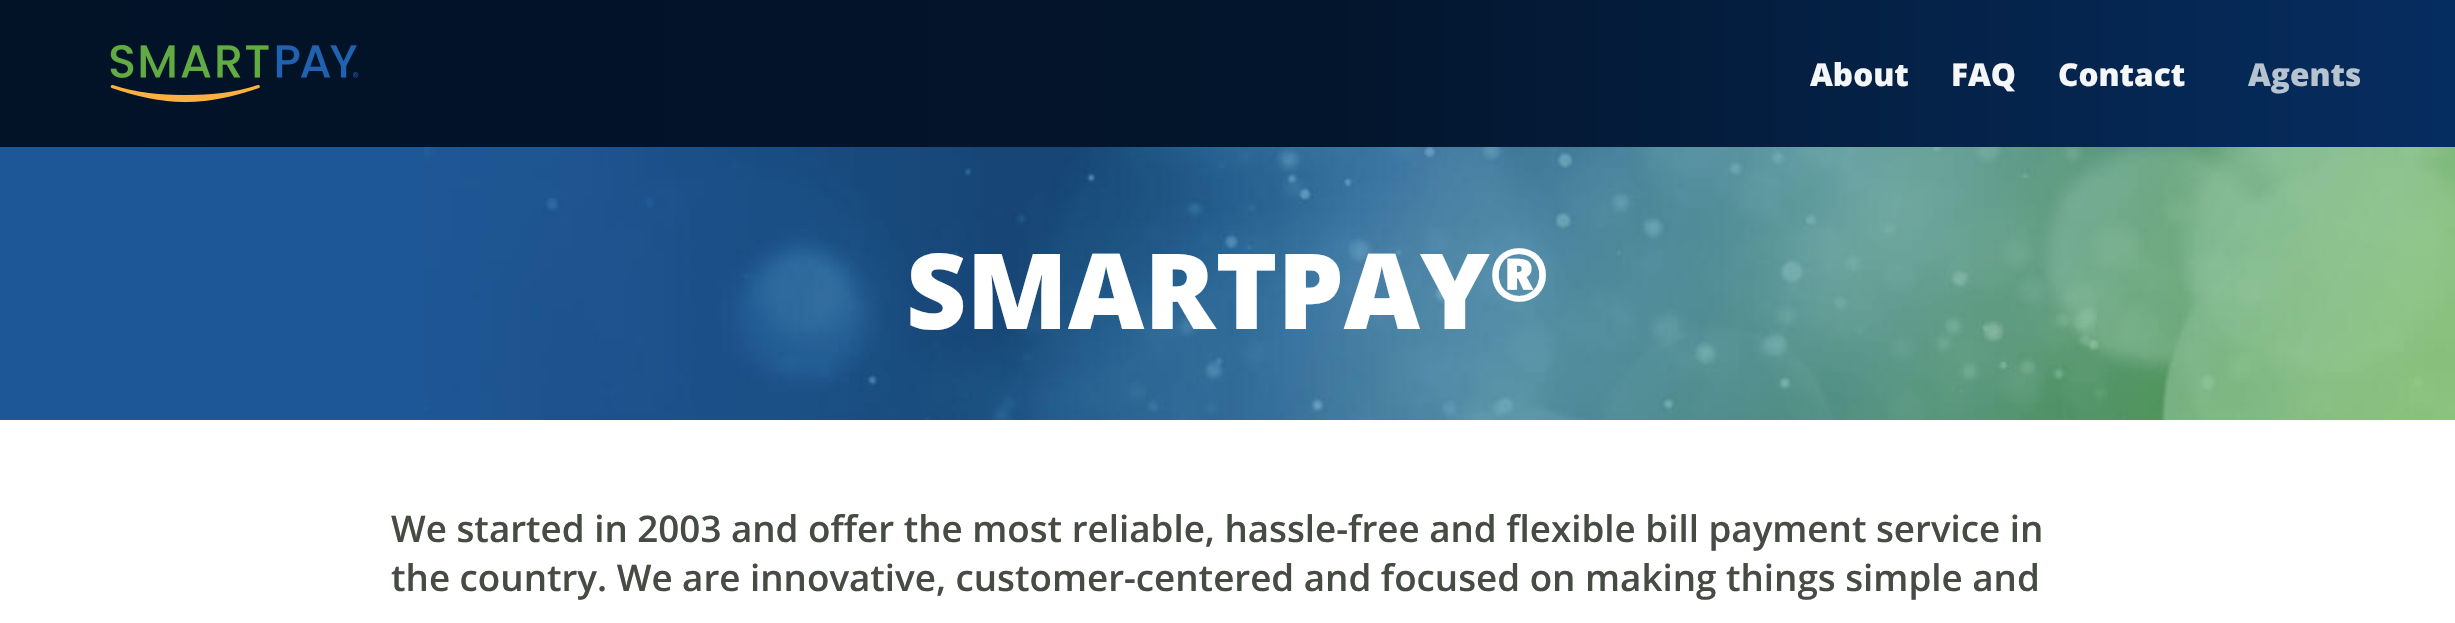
static SkFont makeFont(const char* family, int weight, float size, bool italic = false) {
  SkFontStyle style(weight, SkFontStyle::kNormal_Width,
    italic ? SkFontStyle::kItalic_Slant : SkFontStyle::kUpright_Slant);
  SkFont result(fontMgr->matchFamilyStyle(family, style), size);
  result.setSubpixel(true);
  return result;
}

static void text(SkCanvas* c, const char* s, float x, float y, const SkFont& font, SkColor color) {
  SkPaint ink(SkColor4f::FromColor(color));
  ink.setAntiAlias(true);
  c->drawString(s, x, y, font, ink);
}

static void box(SkCanvas* c, float l, float t, float r, float b, SkColor color) {
  SkPaint ink(SkColor4f::FromColor(color));
  ink.setAntiAlias(true);
  c->drawRect(SkRect::MakeLTRB(l, t, r, b), ink);
}

static void picture(SkCanvas* c, const char* path, float l, float t, float r, float b) {
  auto image = SkImages::DeferredFromEncodedData(SkData::MakeFromFileName(path));
  c->drawImageRect(image, SkRect::MakeLTRB(l, t, r, b), SkSamplingOptions());
}

void draw(SkCanvas* c) {
  SkPaint paint;
  paint.setAntiAlias(true);
  c->clear(0xffffffff);
  {
    const SkColor colors[] = {0xff062d60, 0xff03152c, 0xff021227};
    const float stops[] = {0, 0.46f, 1};
    const SkPoint ends[] = {{2455, 73}, {0, 74}};
    paint.setShader(SkGradientShader::MakeLinear(ends, colors, stops, 3, SkTileMode::kClamp));
    paint.setAlpha(255);
  }
  c->drawRect(SkRect::MakeLTRB(0, 0, 2455, 147), paint);
  picture(c, "img_01.png", 110, 45, 359, 103);
  SkFont face1 = makeFont("Open Sans", 800, 31.5f);
  text(c, "About", 1810, 86, face1, 0xfff4f6f8);
  text(c, "FAQ", 1951, 86, face1, 0xfff4f6f8);
  text(c, "Contact", 2058, 86, face1, 0xfff4f6f8);
  text(c, "Agents", 2248, 86, face1, 0xffb8c3d0);
  box(c, 0, 147, 424, 420, 0xff1e5798);
  picture(c, "img_02.png", 424, 147, 2455, 420);
  SkFont face2 = makeFont("Open Sans", 800, 105);
  text(c, "SMARTPAY", 906, 329, face2, 0xffffffff);
  SkFont face3 = makeFont("Open Sans", 800, 73);
  text(c, "®", 1489, 301, face3, 0xffffffff);
  SkFont face4 = makeFont("Open Sans", 600, 36.75f);
  text(c, "We started in 2003 and offer the most reliable, hassle-free and flexible bill payment service in", 391, 542, face4, 0xff464c43);
  text(c, "the country. We are innovative, customer-centered and focused on making things simple and", 391, 591, face4, 0xff464c43);
}
